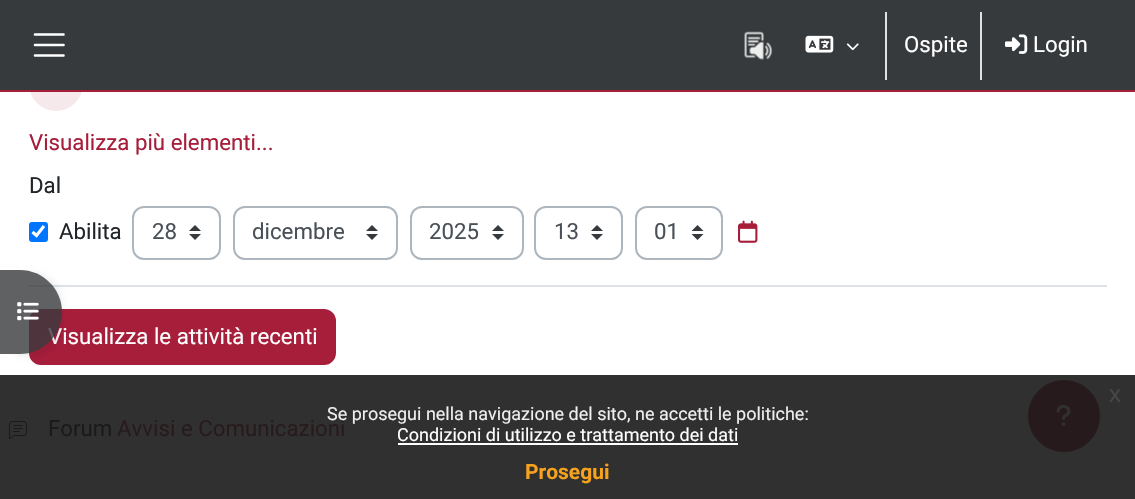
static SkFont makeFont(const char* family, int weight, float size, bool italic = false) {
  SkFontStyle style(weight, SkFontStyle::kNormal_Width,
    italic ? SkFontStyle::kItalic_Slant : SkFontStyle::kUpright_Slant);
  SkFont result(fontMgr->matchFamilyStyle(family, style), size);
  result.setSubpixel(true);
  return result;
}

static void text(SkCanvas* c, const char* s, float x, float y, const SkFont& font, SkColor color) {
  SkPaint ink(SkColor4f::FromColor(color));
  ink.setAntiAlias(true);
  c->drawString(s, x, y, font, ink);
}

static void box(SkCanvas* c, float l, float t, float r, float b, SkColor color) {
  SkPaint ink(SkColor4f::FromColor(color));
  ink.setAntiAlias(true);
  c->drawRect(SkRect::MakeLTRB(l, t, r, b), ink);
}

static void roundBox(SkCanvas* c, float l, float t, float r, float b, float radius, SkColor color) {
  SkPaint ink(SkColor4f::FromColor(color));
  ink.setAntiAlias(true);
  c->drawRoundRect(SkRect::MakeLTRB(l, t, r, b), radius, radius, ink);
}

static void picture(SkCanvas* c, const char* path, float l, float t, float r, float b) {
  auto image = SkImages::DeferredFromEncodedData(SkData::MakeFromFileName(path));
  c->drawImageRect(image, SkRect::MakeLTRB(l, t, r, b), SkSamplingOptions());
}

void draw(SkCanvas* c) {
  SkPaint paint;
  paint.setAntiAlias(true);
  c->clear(0xffffffff);
  box(c, 0, 375, 1135, 499, 0xff303030);
  paint.setColor(0xfff6e9eb);
  c->drawCircle(56, 84, 27, paint);
  box(c, 0, 0, 1135, 90, 0xff373a3c);
  box(c, 0, 90, 1135, 92, 0xffa71e3b);
  paint.setStyle(SkPaint::kStroke_Style);
  paint.setStrokeWidth(2.6f);
  paint.setStrokeCap(SkPaint::kRound_Cap);
  paint.setColor(0xffffffff);
  c->drawPath(SkPathBuilder().moveTo(35, 34.5f).lineTo(63.5f, 34.5f).moveTo(35, 45).lineTo(63.5f, 45).moveTo(35, 55.5f).lineTo(63.5f, 55.5f).detach(), paint);
  picture(c, "img_01.png", 744, 31, 773, 60);
  picture(c, "img_02.png", 805, 35, 834, 53);
  picture(c, "img_03.png", 846, 43, 859, 51);
  box(c, 885, 12, 887, 80, 0xffdee2e6);
  SkFont face1 = makeFont("Roboto", 400, 22.25f);
  text(c, "Ospite", 904, 52, face1, 0xffffffff);
  box(c, 980, 12, 982, 80, 0xffdee2e6);
  picture(c, "img_04.png", 1005, 34, 1028, 54);
  text(c, "Login", 1033, 52, face1, 0xffffffff);
  box(c, 29, 285, 1107, 287, 0xffdee2e6);
  text(c, "Visualizza più elementi...", 29, 150, face1, 0xffa71e3b);
  text(c, "Dal", 29, 193, face1, 0xff212529);
  roundBox(c, 29, 222, 48, 242, 3, 0xff0075ff);
  paint.setStrokeWidth(3.1f);
  paint.setStrokeCap(SkPaint::kButt_Cap);
  c->drawPath(SkPathBuilder().moveTo(32.5f, 232).lineTo(36.5f, 235.5f).lineTo(44, 226).detach(), paint);
  text(c, "Abilita", 59, 239, face1, 0xff212529);
  picture(c, "img_05.png", 189, 225, 201, 240);
  paint.setStrokeWidth(2);
  paint.setColor(0xffadb5bd);
  c->drawRoundRect(SkRect::MakeLTRB(133, 207, 220, 259), 11, 11, paint);
  text(c, "28", 152, 239, face1, 0xff495057);
  picture(c, "img_05.png", 366, 225, 378, 240);
  c->drawRoundRect(SkRect::MakeLTRB(234, 207, 397, 259), 11, 11, paint);
  text(c, "dicembre", 252, 239, face1, 0xff495057);
  picture(c, "img_05.png", 492, 225, 504, 240);
  c->drawRoundRect(SkRect::MakeLTRB(411, 207, 523, 259), 11, 11, paint);
  text(c, "2025", 429, 239, face1, 0xff495057);
  picture(c, "img_05.png", 591, 225, 603, 240);
  c->drawRoundRect(SkRect::MakeLTRB(535, 207, 622, 259), 11, 11, paint);
  text(c, "13", 554, 239, face1, 0xff495057);
  picture(c, "img_06.png", 692, 225, 704, 240);
  c->drawRoundRect(SkRect::MakeLTRB(636, 207, 722, 259), 11, 11, paint);
  text(c, "01", 654, 239, face1, 0xff495057);
  picture(c, "img_07.png", 738, 220, 758, 243);
  paint.setStyle(SkPaint::kFill_Style);
  paint.setColor(0xffa71e3b);
  c->drawRoundRect(SkRect::MakeLTRB(30, 310, 335, 364), 11, 11, paint);
  paint.setStyle(SkPaint::kStroke_Style);
  c->drawRoundRect(SkRect::MakeLTRB(30, 310, 335, 364), 11, 11, paint);
  text(c, "Visualizza le attività recenti", 48, 344, face1, 0xffffffff);
  picture(c, "img_08.png", 9, 421, 27, 439);
  text(c, "Forum", 48, 436, face1, 0xff1a1a1b);
  text(c, "Avvisi e Comunicazioni", 117, 436, face1, 0xff271a1c);
  c->save();
  c->clipPath(SkPathBuilder(SkPathFillType::kEvenOdd).moveTo(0, 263).lineTo(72, 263).lineTo(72, 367).lineTo(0, 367).close().moveTo(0, 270).lineTo(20, 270).cubicTo(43, 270, 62, 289, 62, 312).cubicTo(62, 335, 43, 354, 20, 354).lineTo(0, 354).close().detach(), true);
  paint.setStyle(SkPaint::kFill_Style);
  paint.setColor(0x12000000);
  paint.setMaskFilter(SkMaskFilter::MakeBlur(kNormal_SkBlurStyle, 3));
  c->drawRoundRect(SkRect::MakeLTRB(0, 273, 62, 357), 42, 42, paint);
  paint.setMaskFilter(nullptr);
  c->restore();
  paint.setColor(0xcc373a3c);
  c->drawPath(SkPathBuilder().moveTo(0, 270).lineTo(20, 270).cubicTo(43, 270, 62, 289, 62, 312).cubicTo(62, 335, 43, 354, 20, 354).lineTo(0, 354).close().detach(), paint);
  picture(c, "img_09.png", 17, 302, 39, 321);
  paint.setColor(0xff271a1c);
  c->drawCircle(1064, 416, 35, paint);
  paint.setStyle(SkPaint::kStroke_Style);
  c->drawCircle(1064, 416, 35, paint);
  picture(c, "img_10.png", 1056, 405, 1071, 426);
  SkFont face2 = makeFont("Liberation Sans", 400, 24);
  text(c, "x", 1109, 402, face2, 0xff474747);
  SkFont face3 = makeFont("Roboto", 400, 18);
  text(c, "Se prosegui nella navigazione del sito, ne accetti le politiche:", 327, 420, face3, 0xffefefef);
  text(c, "Condizioni di utilizzo e trattamento dei dati", 397, 441, face3, 0xffffffff);
  box(c, 398, 443, 738, 445, 0xffffffff);
  SkFont face4 = makeFont("Roboto", 700, 21);
  text(c, "Prosegui", 525, 479, face4, 0xfff6a21d);
}
